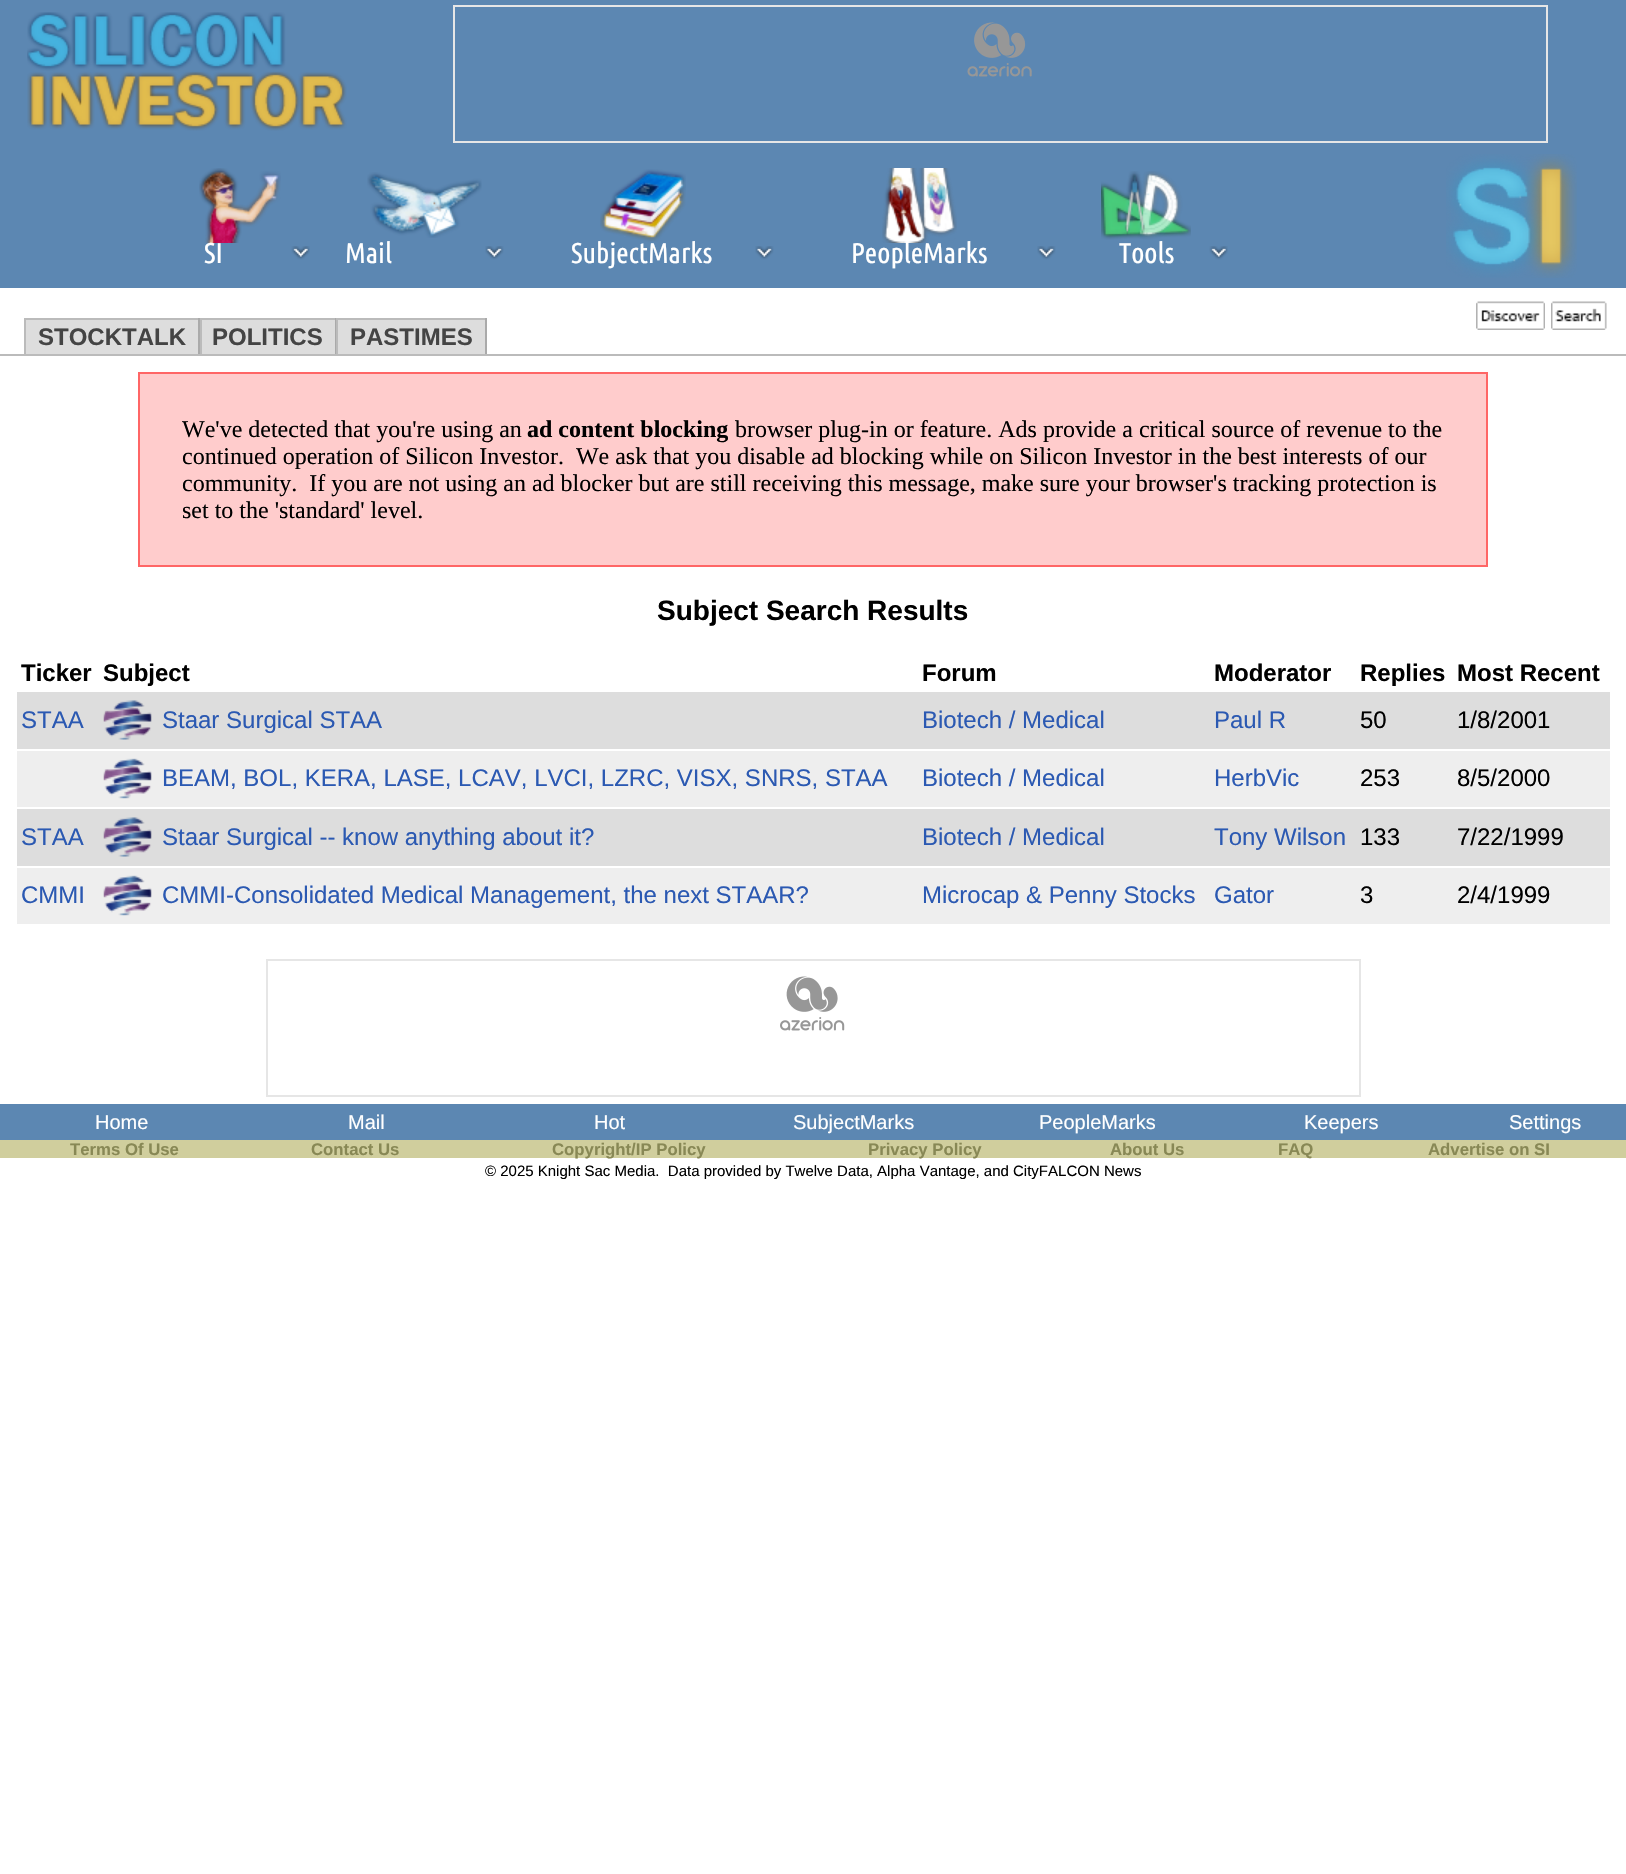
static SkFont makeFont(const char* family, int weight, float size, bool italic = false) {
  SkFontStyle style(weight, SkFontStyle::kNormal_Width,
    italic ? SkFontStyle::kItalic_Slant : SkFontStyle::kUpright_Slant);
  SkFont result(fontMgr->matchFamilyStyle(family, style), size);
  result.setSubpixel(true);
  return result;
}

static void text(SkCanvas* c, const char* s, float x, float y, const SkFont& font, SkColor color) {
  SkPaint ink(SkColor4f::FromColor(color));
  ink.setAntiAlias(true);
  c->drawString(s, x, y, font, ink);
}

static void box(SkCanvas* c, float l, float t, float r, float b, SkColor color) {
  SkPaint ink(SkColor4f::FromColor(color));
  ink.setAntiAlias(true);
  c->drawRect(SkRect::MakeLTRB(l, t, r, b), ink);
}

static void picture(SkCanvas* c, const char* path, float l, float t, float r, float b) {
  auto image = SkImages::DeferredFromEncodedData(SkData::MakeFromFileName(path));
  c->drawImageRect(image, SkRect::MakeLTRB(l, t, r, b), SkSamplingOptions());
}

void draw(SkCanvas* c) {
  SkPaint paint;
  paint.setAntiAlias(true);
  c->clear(0xffffffff);
  box(c, 0, 0, 1626, 288, 0xff5c87b2);
  picture(c, "img_01.png", 27, 12, 347, 131);
  paint.setStyle(SkPaint::kStroke_Style);
  paint.setStrokeWidth(2);
  paint.setColor(0xffe6e6e6);
  c->drawRect(SkRect::MakeLTRB(454, 6, 1547, 142), paint);
  picture(c, "img_02.png", 967, 22, 1032, 77);
  picture(c, "img_03.png", 199, 168, 281, 243);
  picture(c, "img_04.png", 291, 246, 310, 260);
  SkFont face1 = makeFont("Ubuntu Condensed", 400, 28.5f);
  text(c, "SI", 204, 263, face1, 0xffffffff);
  picture(c, "img_05.png", 367, 172, 482, 238);
  picture(c, "img_06.png", 485, 246, 504, 260);
  text(c, "Mail", 345, 263, face1, 0xffffffff);
  picture(c, "img_07.png", 600, 169, 686, 242);
  picture(c, "img_06.png", 755, 246, 774, 260);
  text(c, "SubjectMarks", 571, 263, face1, 0xffffffff);
  picture(c, "img_08.png", 882, 168, 957, 243);
  picture(c, "img_09.png", 1037, 246, 1056, 260);
  text(c, "PeopleMarks", 851, 263, face1, 0xffffffff);
  picture(c, "img_10.png", 1101, 171, 1191, 240);
  picture(c, "img_04.png", 1209, 246, 1228, 260);
  text(c, "Tools", 1119, 263, face1, 0xffffffff);
  picture(c, "img_11.png", 1446, 154, 1577, 278);
  picture(c, "img_12.png", 1476, 301, 1545, 330);
  picture(c, "img_13.png", 1551, 301, 1607, 330);
  box(c, 26, 320, 198, 354, 0xffdddddd);
  box(c, 24, 318, 486, 320, 0xffbbbbbb);
  box(c, 198, 318, 200, 356, 0xffaaaaaa);
  box(c, 24, 318, 26, 356, 0xffbbbbbb);
  SkFont face2 = makeFont("Liberation Sans", 700, 24);
  text(c, "STOCKTALK", 38, 345, face2, 0xff444444);
  box(c, 202, 320, 335, 354, 0xffdddddd);
  box(c, 335, 318, 336, 356, 0xffaaaaaa);
  box(c, 200, 318, 202, 356, 0xffbbbbbb);
  text(c, "POLITICS", 212, 345, face2, 0xff444444);
  box(c, 338, 320, 485, 354, 0xffdddddd);
  box(c, 485, 318, 487, 356, 0xffaaaaaa);
  box(c, 336, 318, 338, 356, 0xffbbbbbb);
  text(c, "PASTIMES", 350, 345, face2, 0xff444444);
  box(c, 0, 354, 1626, 356, 0xffbbbbbb);
  paint.setStyle(SkPaint::kFill_Style);
  paint.setColor(0xffffcccc);
  c->drawRect(SkRect::MakeLTRB(139, 373, 1487, 566), paint);
  paint.setStyle(SkPaint::kStroke_Style);
  paint.setColor(0xffff6666);
  c->drawRect(SkRect::MakeLTRB(139, 373, 1487, 566), paint);
  SkFont face3 = makeFont("Liberation Serif", 400, 24);
  text(c, "We've detected that you're using an", 182, 437, face3, 0xff000000);
  SkFont face4 = makeFont("Liberation Serif", 700, 24);
  text(c, "ad content blocking", 527, 437, face4, 0xff000000);
  text(c, "browser plug-in or feature. Ads provide a critical source of revenue to the", 735, 437, face3, 0xff000000);
  text(c, "continued operation of Silicon Investor.  We ask that you disable ad blocking while on Silicon Investor in the best interests of our", 182, 464, face3, 0xff000000);
  text(c, "community.  If you are not using an ad blocker but are still receiving this message, make sure your browser's tracking protection is", 182, 491, face3, 0xff000000);
  text(c, "set to the 'standard' level.", 182, 518, face3, 0xff000000);
  SkFont face5 = makeFont("Liberation Sans", 700, 28);
  text(c, "Subject Search Results", 657, 620, face5, 0xff000000);
  text(c, "Ticker", 21, 681, face2, 0xff000000);
  text(c, "Subject", 103, 681, face2, 0xff000000);
  text(c, "Forum", 922, 681, face2, 0xff000000);
  text(c, "Moderator", 1214, 681, face2, 0xff000000);
  text(c, "Replies", 1360, 681, face2, 0xff000000);
  text(c, "Most Recent", 1457, 681, face2, 0xff000000);
  box(c, 17, 692, 1610, 749, 0xffdddddd);
  SkFont face6 = makeFont("Liberation Sans", 400, 24);
  text(c, "STAA", 21, 728, face6, 0xff2b59b2);
  picture(c, "img_14.png", 103, 700, 152, 740);
  text(c, "Staar Surgical STAA", 162, 728, face6, 0xff2b59b2);
  text(c, "Biotech / Medical", 922, 728, face6, 0xff2b59b2);
  text(c, "Paul R", 1214, 728, face6, 0xff2b59b2);
  text(c, "50", 1360, 728, face6, 0xff000000);
  text(c, "1/8/2001", 1457, 728, face6, 0xff000000);
  box(c, 17, 751, 1610, 807, 0xffeeeeee);
  picture(c, "img_15.png", 103, 758, 152, 799);
  text(c, "BEAM, BOL, KERA, LASE, LCAV, LVCI, LZRC, VISX, SNRS, STAA", 162, 786, face6, 0xff2b59b2);
  text(c, "Biotech / Medical", 922, 786, face6, 0xff2b59b2);
  text(c, "HerbVic", 1214, 786, face6, 0xff2b59b2);
  text(c, "253", 1360, 786, face6, 0xff000000);
  text(c, "8/5/2000", 1457, 786, face6, 0xff000000);
  box(c, 17, 809, 1610, 866, 0xffdddddd);
  text(c, "STAA", 21, 845, face6, 0xff2b59b2);
  picture(c, "img_14.png", 103, 817, 152, 857);
  text(c, "Staar Surgical -- know anything about it?", 162, 845, face6, 0xff2b59b2);
  text(c, "Biotech / Medical", 922, 845, face6, 0xff2b59b2);
  text(c, "Tony Wilson", 1214, 845, face6, 0xff2b59b2);
  text(c, "133", 1360, 845, face6, 0xff000000);
  text(c, "7/22/1999", 1457, 845, face6, 0xff000000);
  box(c, 17, 868, 1610, 924, 0xffeeeeee);
  text(c, "CMMI", 21, 903, face6, 0xff2b59b2);
  picture(c, "img_15.png", 103, 875, 152, 916);
  text(c, "CMMI-Consolidated Medical Management, the next STAAR?", 162, 903, face6, 0xff2b59b2);
  text(c, "Microcap & Penny Stocks", 922, 903, face6, 0xff2b59b2);
  text(c, "Gator", 1214, 903, face6, 0xff2b59b2);
  text(c, "3", 1360, 903, face6, 0xff000000);
  text(c, "2/4/1999", 1457, 903, face6, 0xff000000);
  paint.setColor(0xffe6e6e6);
  c->drawRect(SkRect::MakeLTRB(267, 960, 1360, 1096), paint);
  picture(c, "img_16.png", 780, 976, 845, 1031);
  box(c, 0, 1104, 1626, 1140, 0xff5c87b2);
  SkFont face7 = makeFont("Liberation Sans", 400, 20);
  text(c, "Home", 95, 1129, face7, 0xffffffff);
  text(c, "Mail", 348, 1129, face7, 0xffffffff);
  text(c, "Hot", 594, 1129, face7, 0xffffffff);
  text(c, "SubjectMarks", 793, 1129, face7, 0xffffffff);
  text(c, "PeopleMarks", 1039, 1129, face7, 0xffffffff);
  text(c, "Keepers", 1304, 1129, face7, 0xffffffff);
  text(c, "Settings", 1509, 1129, face7, 0xffffffff);
  box(c, 0, 1140, 1626, 1158, 0xffd0ce9d);
  SkFont face8 = makeFont("Liberation Sans", 700, 16.75f);
  text(c, "Terms Of Use", 70, 1155, face8, 0xff888855);
  text(c, "Contact Us", 311, 1155, face8, 0xff888855);
  text(c, "Copyright/IP Policy", 552, 1155, face8, 0xff888855);
  text(c, "Privacy Policy", 868, 1155, face8, 0xff888855);
  text(c, "About Us", 1110, 1155, face8, 0xff888855);
  text(c, "FAQ", 1278, 1155, face8, 0xff888855);
  text(c, "Advertise on SI", 1428, 1155, face8, 0xff888855);
  SkFont face9 = makeFont("Liberation Sans", 400, 15);
  text(c, "© 2025 Knight Sac Media.  Data provided by Twelve Data, Alpha Vantage, and CityFALCON News", 485, 1176, face9, 0xff000000);
}
